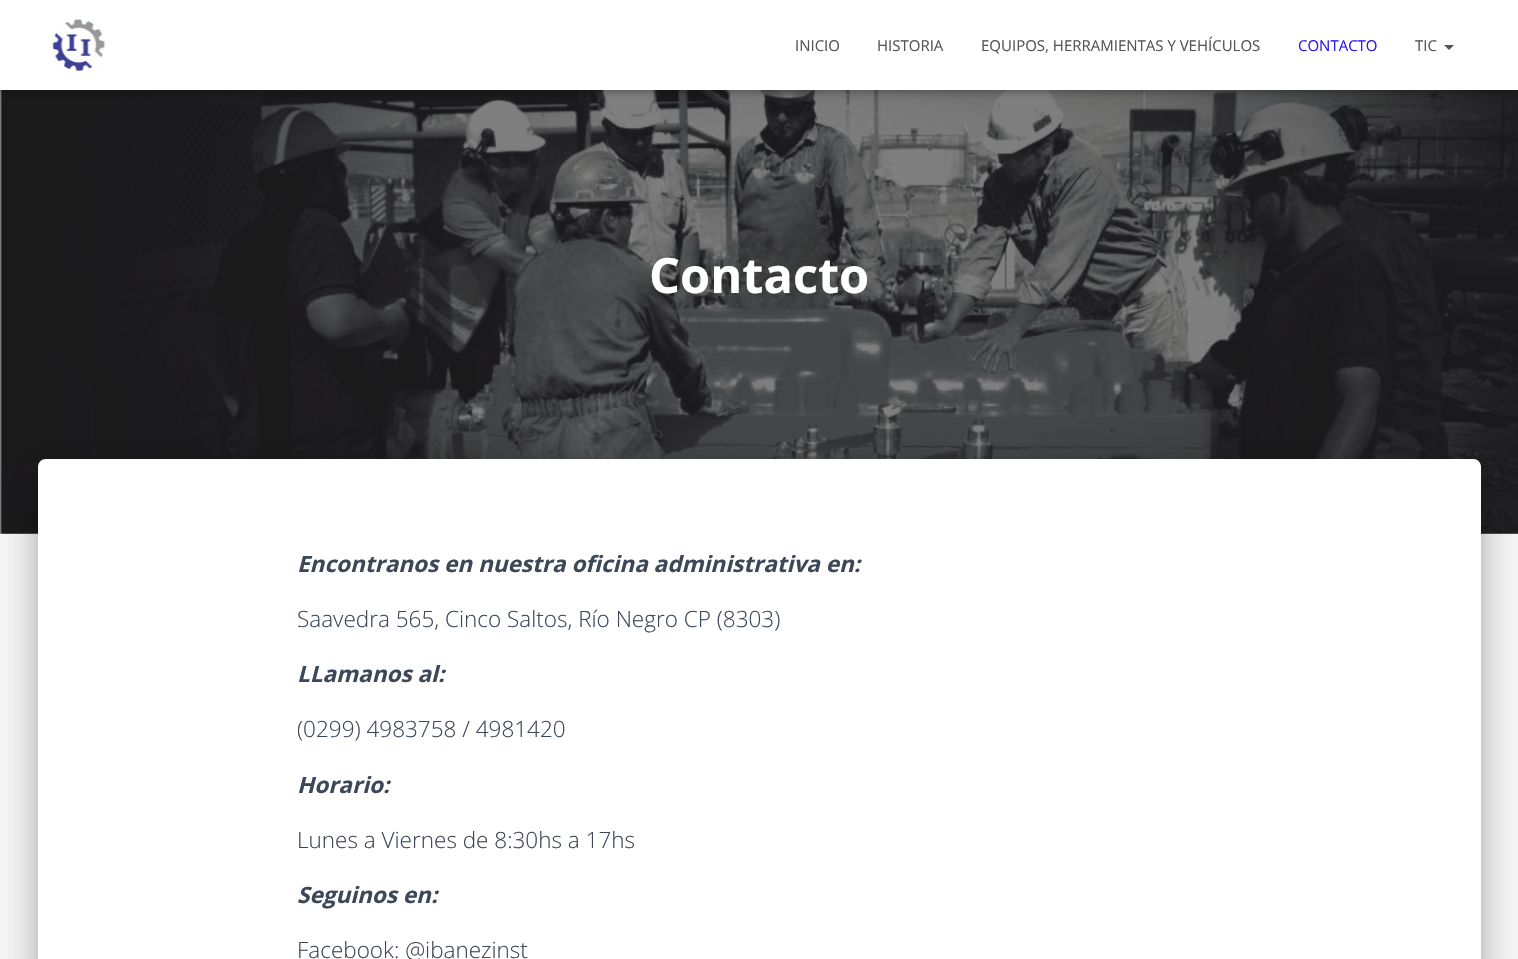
static SkFont makeFont(const char* family, int weight, float size, bool italic = false) {
  SkFontStyle style(weight, SkFontStyle::kNormal_Width,
    italic ? SkFontStyle::kItalic_Slant : SkFontStyle::kUpright_Slant);
  SkFont result(fontMgr->matchFamilyStyle(family, style), size);
  result.setSubpixel(true);
  return result;
}

static void text(SkCanvas* c, const char* s, float x, float y, const SkFont& font, SkColor color) {
  SkPaint ink(SkColor4f::FromColor(color));
  ink.setAntiAlias(true);
  c->drawString(s, x, y, font, ink);
}

static void box(SkCanvas* c, float l, float t, float r, float b, SkColor color) {
  SkPaint ink(SkColor4f::FromColor(color));
  ink.setAntiAlias(true);
  c->drawRect(SkRect::MakeLTRB(l, t, r, b), ink);
}

static void picture(SkCanvas* c, const char* path, float l, float t, float r, float b) {
  auto image = SkImages::DeferredFromEncodedData(SkData::MakeFromFileName(path));
  c->drawImageRect(image, SkRect::MakeLTRB(l, t, r, b), SkSamplingOptions());
}

void draw(SkCanvas* c) {
  SkPaint paint;
  paint.setAntiAlias(true);
  c->clear(0xfff7f7f7);
  picture(c, "img_02.png", 0, 90, 1518, 534);
  paint.setColor(0x1a000000);
  paint.setMaskFilter(SkMaskFilter::MakeBlur(kNormal_SkBlurStyle, 3));
  c->drawRect(SkRect::MakeLTRB(3, 8, 1516, 93), paint);
  paint.setMaskFilter(nullptr);
  paint.setColor(0x1f000000);
  paint.setMaskFilter(SkMaskFilter::MakeBlur(kNormal_SkBlurStyle, 6));
  c->drawRect(SkRect::MakeLTRB(0, 1, 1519, 91), paint);
  paint.setMaskFilter(nullptr);
  paint.setColor(0x6b000000);
  paint.setMaskFilter(SkMaskFilter::MakeBlur(kNormal_SkBlurStyle, 6));
  c->drawRect(SkRect::MakeLTRB(8, 9, 1511, 84), paint);
  paint.setMaskFilter(nullptr);
  box(c, 0, 0, 1518, 90, 0xffffffff);
  picture(c, "img_01.png", 52, 19, 106, 72);
  SkFont face1 = makeFont("Open Sans", 400, 15);
  text(c, "INICIO", 795, 51, face1, 0xff555555);
  text(c, "HISTORIA", 877, 51, face1, 0xff555555);
  text(c, "EQUIPOS, HERRAMIENTAS Y VEHÍCULOS", 981, 51, face1, 0xff555555);
  text(c, "CONTACTO", 1298, 51, face1, 0xff2c1be5);
  text(c, "TIC", 1415, 51, face1, 0xff555555);
  paint.setColor(0xff555555);
  c->drawPath(SkPathBuilder().moveTo(1444, 45).lineTo(1454, 45).lineTo(1449, 50).close().detach(), paint);
  SkFont face2 = makeFont("Open Sans", 700, 48.75f);
  text(c, "Contacto", 649, 293, face2, 0xffffffff);
  paint.setColor(0x33000000);
  paint.setMaskFilter(SkMaskFilter::MakeBlur(kNormal_SkBlurStyle, 6));
  c->drawRoundRect(SkRect::MakeLTRB(44, 475, 1475, 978), 1, 1, paint);
  paint.setMaskFilter(nullptr);
  paint.setColor(0x1f000000);
  paint.setMaskFilter(SkMaskFilter::MakeBlur(kNormal_SkBlurStyle, 19));
  c->drawRoundRect(SkRect::MakeLTRB(31, 460, 1488, 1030), 14, 14, paint);
  paint.setMaskFilter(nullptr);
  paint.setColor(0x24000000);
  paint.setMaskFilter(SkMaskFilter::MakeBlur(kNormal_SkBlurStyle, 15));
  c->drawRoundRect(SkRect::MakeLTRB(35, 476, 1484, 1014), 10, 10, paint);
  paint.setMaskFilter(nullptr);
  paint.setColor(0xffffffff);
  c->drawPath(SkPathBuilder().moveTo(46, 459).lineTo(1473, 459).cubicTo(1477.5f, 459, 1481, 462.5f, 1481, 467).lineTo(1481, 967).lineTo(38, 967).lineTo(38, 467).cubicTo(38, 462.5f, 41.5f, 459, 46, 459).close().detach(), paint);
  SkFont face3 = makeFont("Open Sans", 700, 22.5f, true);
  text(c, "Encontranos en nuestra oficina administrativa en:", 297, 572, face3, 0xff3c4858);
  SkFont face4 = makeFont("Open Sans", 300, 22.5f);
  text(c, "Saavedra 565, Cinco Saltos, Río Negro CP (8303)", 297, 627, face4, 0xff3c4858);
  text(c, "LLamanos al:", 297, 682, face3, 0xff3c4858);
  text(c, "(0299) 4983758 / 4981420", 297, 737, face4, 0xff3c4858);
  text(c, "Horario:", 297, 793, face3, 0xff3c4858);
  text(c, "Lunes a Viernes de 8:30hs a 17hs", 297, 848, face4, 0xff3c4858);
  text(c, "Seguinos en:", 297, 903, face3, 0xff3c4858);
  text(c, "Facebook: @ibanezinst", 297, 958, face4, 0xff3c4858);
}
